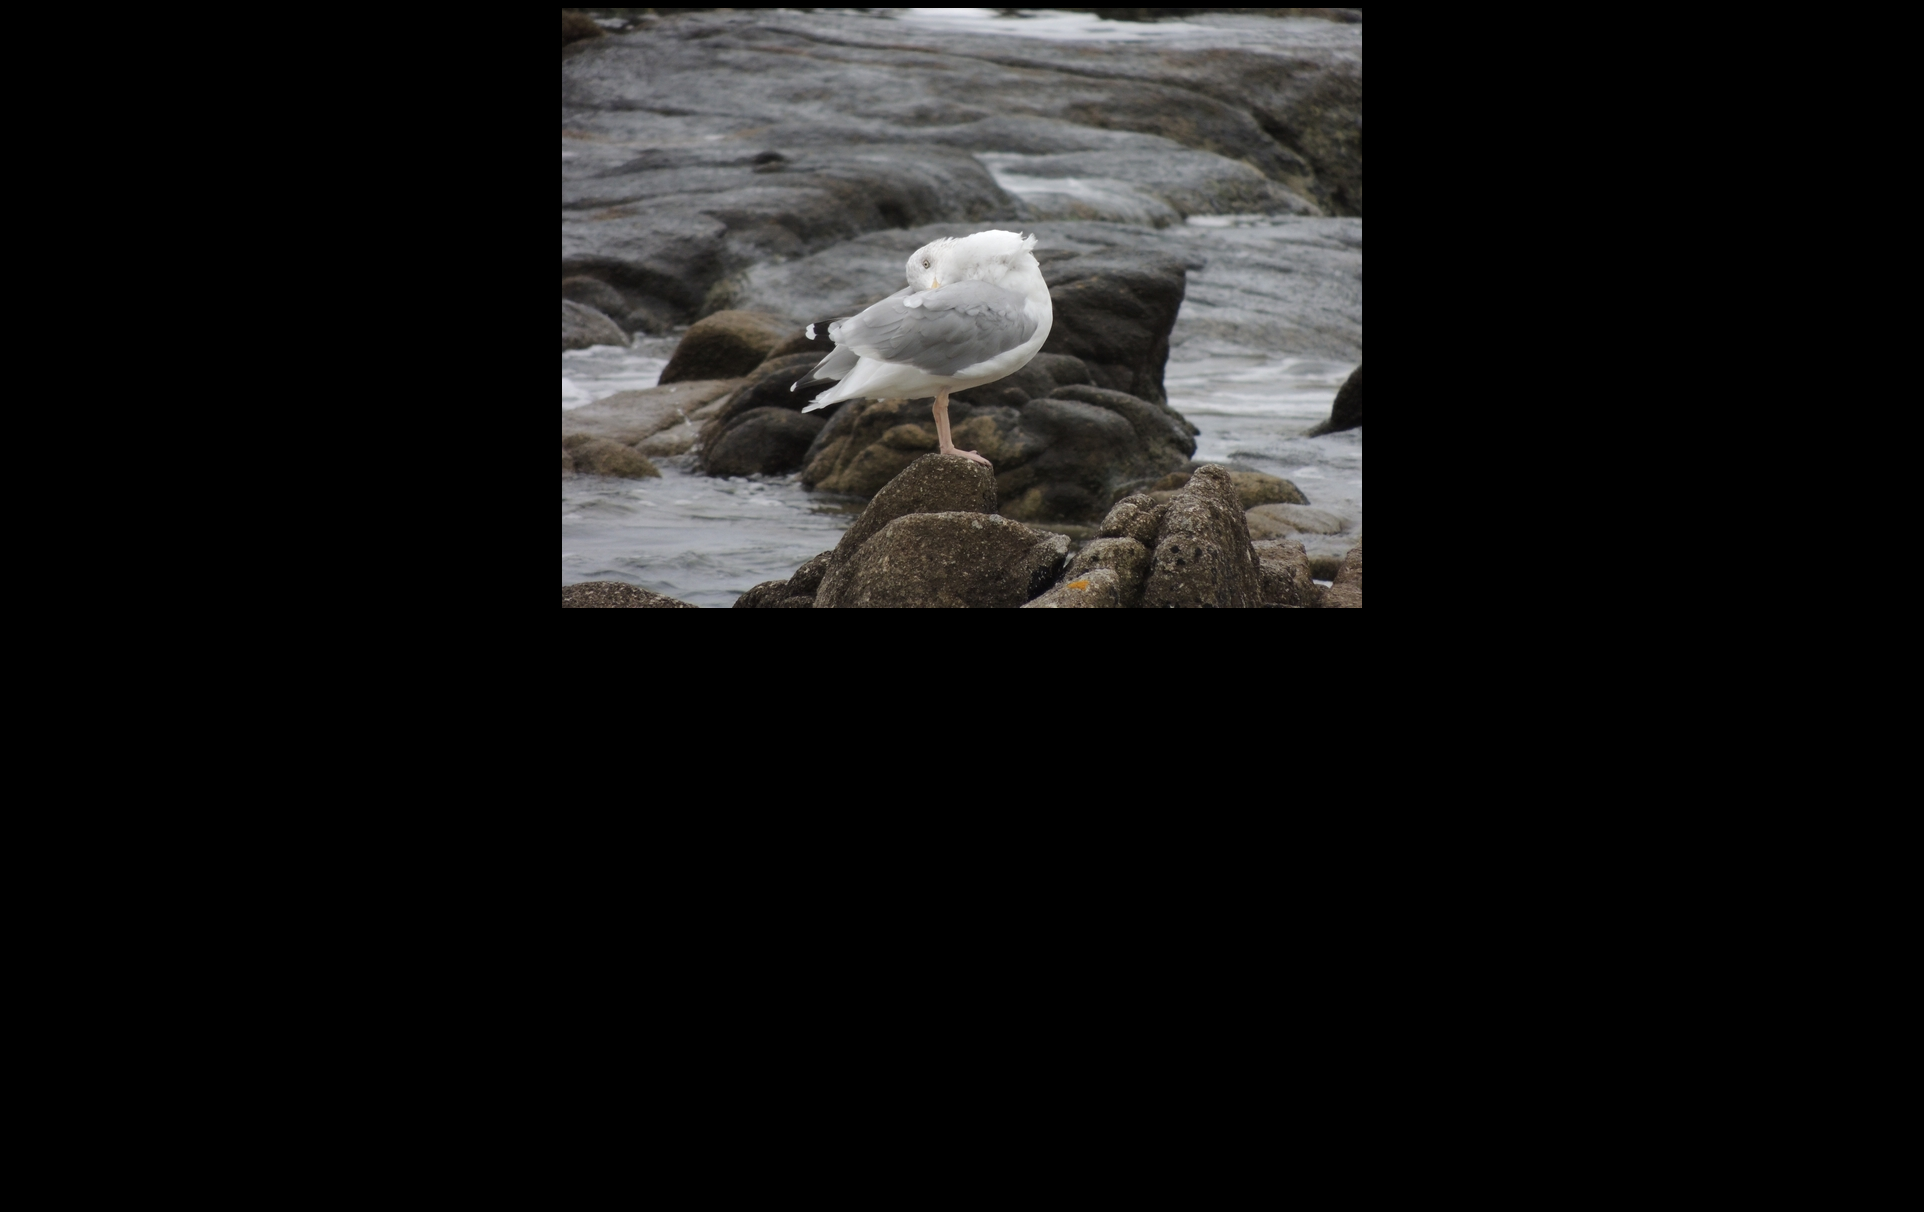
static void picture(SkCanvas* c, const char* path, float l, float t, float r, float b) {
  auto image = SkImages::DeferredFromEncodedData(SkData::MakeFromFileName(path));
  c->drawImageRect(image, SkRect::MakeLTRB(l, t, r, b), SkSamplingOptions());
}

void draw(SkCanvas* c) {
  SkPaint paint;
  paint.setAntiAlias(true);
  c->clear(0xff000000);
  picture(c, "img_01.png", 562, 8, 1362, 608);
}
